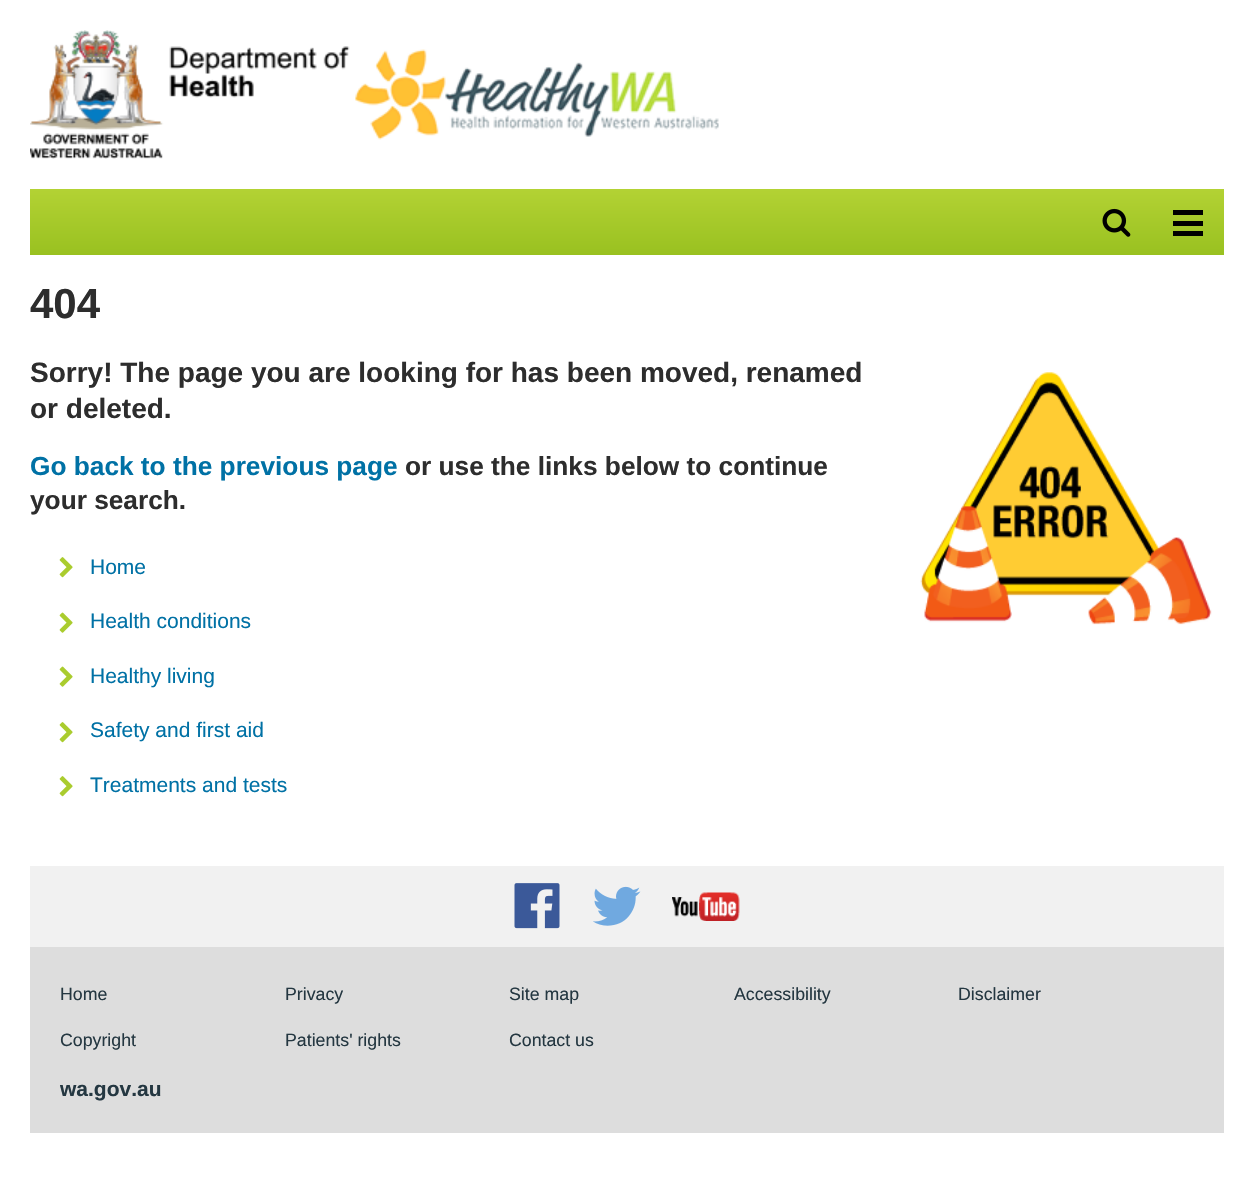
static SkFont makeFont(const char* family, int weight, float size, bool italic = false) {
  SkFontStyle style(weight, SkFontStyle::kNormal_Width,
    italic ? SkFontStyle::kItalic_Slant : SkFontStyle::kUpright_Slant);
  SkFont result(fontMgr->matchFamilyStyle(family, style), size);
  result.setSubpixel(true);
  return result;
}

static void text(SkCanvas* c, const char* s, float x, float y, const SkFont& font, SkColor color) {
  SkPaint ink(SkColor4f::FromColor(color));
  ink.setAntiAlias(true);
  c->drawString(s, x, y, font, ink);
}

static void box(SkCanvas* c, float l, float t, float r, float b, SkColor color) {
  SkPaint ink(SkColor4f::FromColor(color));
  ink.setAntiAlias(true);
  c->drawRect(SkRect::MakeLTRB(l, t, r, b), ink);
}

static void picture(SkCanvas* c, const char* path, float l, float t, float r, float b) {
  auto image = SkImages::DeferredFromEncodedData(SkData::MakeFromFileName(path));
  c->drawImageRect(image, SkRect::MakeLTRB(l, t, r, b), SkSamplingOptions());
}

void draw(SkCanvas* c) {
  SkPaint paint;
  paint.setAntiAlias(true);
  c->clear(0xffffffff);
  picture(c, "img_01.png", 30, 30, 350, 159);
  picture(c, "img_02.png", 355, 49, 719, 140);
  {
    const SkColor colors[] = {0xffb3d234, 0xff99c120};
    const float stops[] = {0, 1};
    const SkPoint ends[] = {{627, 189}, {627, 255}};
    paint.setShader(SkGradientShader::MakeLinear(ends, colors, stops, 2, SkTileMode::kClamp));
    paint.setAlpha(255);
  }
  c->drawRect(SkRect::MakeLTRB(30, 189, 1224, 255), paint);
  picture(c, "img_03.png", 1102, 208, 1131, 237);
  box(c, 1173, 221, 1203, 226, 0xff000000);
  box(c, 1173, 210, 1203, 215, 0xff000000);
  box(c, 1173, 231, 1203, 236, 0xff000000);
  SkFont face1 = makeFont("Liberation Sans", 700, 42);
  text(c, "404", 30, 318, face1, 0xff2d2d2d);
  SkFont face2 = makeFont("Liberation Sans", 700, 28);
  text(c, "Sorry! The page you are looking for has been moved, renamed", 30, 382, face2, 0xff2d2d2d);
  text(c, "or deleted.", 30, 418, face2, 0xff2d2d2d);
  picture(c, "img_04.png", 920, 372, 1212, 625);
  SkFont face3 = makeFont("Liberation Sans", 700, 26.25f);
  text(c, "Go back to the previous page", 30, 475, face3, 0xff0071a5);
  text(c, "or use the links below to continue", 405, 475, face3, 0xff2d2d2d);
  text(c, "your search.", 30, 509, face3, 0xff2d2d2d);
  picture(c, "img_05.png", 59, 557, 73, 578);
  SkFont face4 = makeFont("Liberation Sans", 400, 21);
  text(c, "Home", 90, 574, face4, 0xff0071a5);
  picture(c, "img_06.png", 59, 612, 73, 633);
  text(c, "Health conditions", 90, 628, face4, 0xff0071a5);
  picture(c, "img_06.png", 59, 666, 73, 687);
  text(c, "Healthy living", 90, 683, face4, 0xff0071a5);
  picture(c, "img_05.png", 59, 722, 73, 743);
  text(c, "Safety and first aid", 90, 737, face4, 0xff0071a5);
  picture(c, "img_05.png", 59, 776, 73, 797);
  text(c, "Treatments and tests", 90, 792, face4, 0xff0071a5);
  box(c, 30, 866, 1224, 947, 0xfff1f1f1);
  picture(c, "img_07.png", 514, 883, 560, 929);
  picture(c, "img_08.png", 593, 886, 641, 926);
  picture(c, "img_09.png", 672, 892, 740, 921);
  box(c, 30, 947, 1224, 1133, 0xffdddddd);
  SkFont face5 = makeFont("Liberation Sans", 400, 17.75f);
  text(c, "Home", 60, 1000, face5, 0xff243741);
  text(c, "Privacy", 285, 1000, face5, 0xff243741);
  text(c, "Site map", 509, 1000, face5, 0xff243741);
  text(c, "Accessibility", 734, 1000, face5, 0xff243741);
  text(c, "Disclaimer", 958, 1000, face5, 0xff243741);
  text(c, "Copyright", 60, 1046, face5, 0xff243741);
  text(c, "Patients' rights", 285, 1046, face5, 0xff243741);
  text(c, "Contact us", 509, 1046, face5, 0xff243741);
  SkFont face6 = makeFont("Liberation Sans", 700, 21);
  text(c, "wa.gov.au", 60, 1096, face6, 0xff243741);
}
